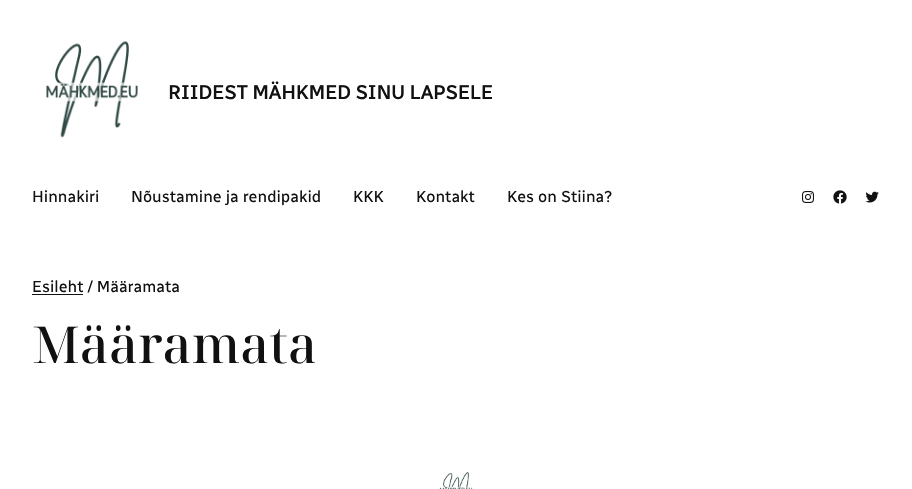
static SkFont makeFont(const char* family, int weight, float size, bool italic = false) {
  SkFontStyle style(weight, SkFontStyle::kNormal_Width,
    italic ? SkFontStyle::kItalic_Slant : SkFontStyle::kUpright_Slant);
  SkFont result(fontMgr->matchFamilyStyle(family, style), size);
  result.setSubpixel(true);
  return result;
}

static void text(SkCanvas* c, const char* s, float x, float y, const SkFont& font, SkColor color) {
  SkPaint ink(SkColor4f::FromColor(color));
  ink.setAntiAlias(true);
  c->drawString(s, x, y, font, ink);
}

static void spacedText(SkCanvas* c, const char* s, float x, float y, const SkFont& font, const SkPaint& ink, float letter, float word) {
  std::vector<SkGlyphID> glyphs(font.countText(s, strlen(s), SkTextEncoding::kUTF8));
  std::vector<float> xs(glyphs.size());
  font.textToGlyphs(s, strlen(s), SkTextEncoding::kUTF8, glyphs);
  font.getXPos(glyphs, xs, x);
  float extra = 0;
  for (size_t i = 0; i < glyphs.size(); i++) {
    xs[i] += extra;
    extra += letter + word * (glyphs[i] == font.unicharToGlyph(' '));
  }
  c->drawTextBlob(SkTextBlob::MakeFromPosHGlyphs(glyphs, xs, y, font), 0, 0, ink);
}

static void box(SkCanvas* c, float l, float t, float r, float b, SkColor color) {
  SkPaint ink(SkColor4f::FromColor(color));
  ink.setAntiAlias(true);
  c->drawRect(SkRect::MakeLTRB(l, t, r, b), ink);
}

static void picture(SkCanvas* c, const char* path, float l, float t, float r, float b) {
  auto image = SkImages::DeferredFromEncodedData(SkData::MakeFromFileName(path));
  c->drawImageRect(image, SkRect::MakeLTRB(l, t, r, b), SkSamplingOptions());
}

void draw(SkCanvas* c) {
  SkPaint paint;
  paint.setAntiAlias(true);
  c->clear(0xffffffff);
  picture(c, "img_01.png", 46, 41, 138, 138);
  SkFont face1 = makeFont("Radio Canada", 500, 20);
  paint.setColor(0xff111111);
  spacedText(c, "RIIDEST MÄHKMED SINU LAPSELE", 168, 99, face1, paint, -0.4f, 0);
  SkFont face2 = makeFont("Radio Canada", 400, 16);
  text(c, "Hinnakiri", 32, 202, face2, 0xff111111);
  text(c, "Nõustamine ja rendipakid", 131, 202, face2, 0xff111111);
  text(c, "KKK", 353, 202, face2, 0xff111111);
  text(c, "Kontakt", 416, 202, face2, 0xff111111);
  text(c, "Kes on Stiina?", 507, 202, face2, 0xff111111);
  picture(c, "img_02.png", 802, 191, 814, 203);
  picture(c, "img_03.png", 833, 190, 847, 204);
  picture(c, "img_04.png", 865, 191, 879, 203);
  text(c, "Esileht / Määramata", 32, 292, face2, 0xff111111);
  box(c, 32, 294, 83, 295, 0xff111111);
  SkFont face3 = makeFont("Noto Serif Display", 500, 50.75f);
  text(c, "Määramata", 32, 363, face3, 0xff111111);
  picture(c, "img_05.png", 439, 472, 473, 489);
}
